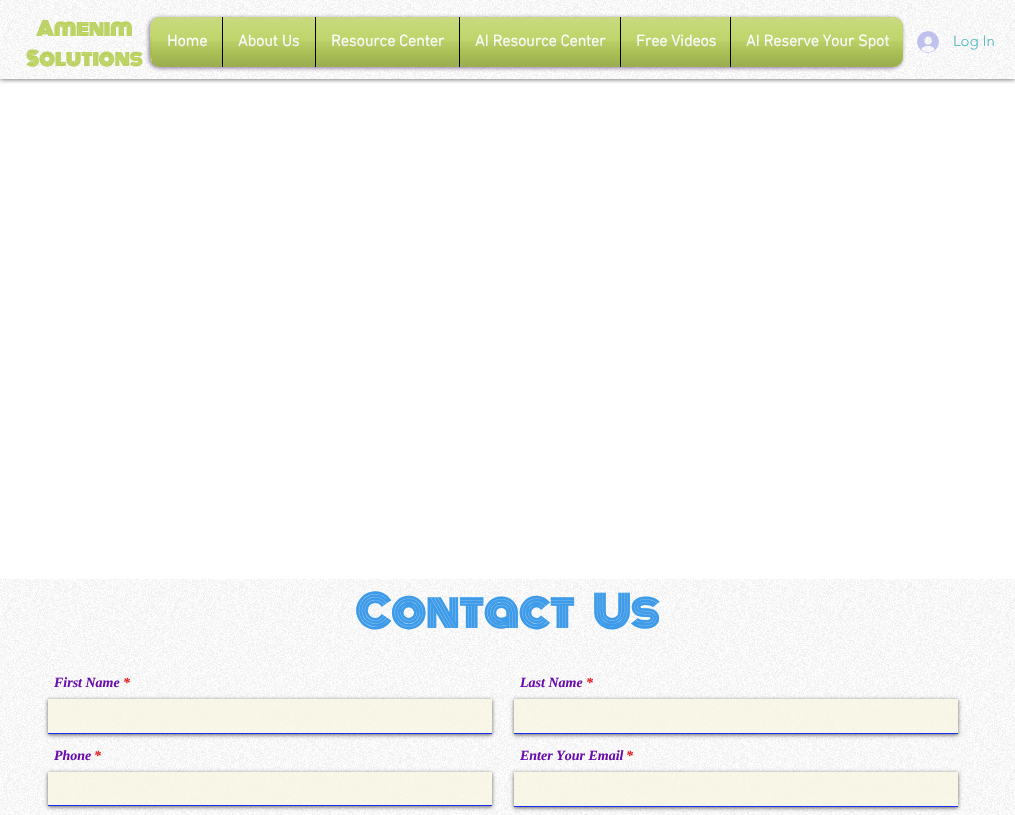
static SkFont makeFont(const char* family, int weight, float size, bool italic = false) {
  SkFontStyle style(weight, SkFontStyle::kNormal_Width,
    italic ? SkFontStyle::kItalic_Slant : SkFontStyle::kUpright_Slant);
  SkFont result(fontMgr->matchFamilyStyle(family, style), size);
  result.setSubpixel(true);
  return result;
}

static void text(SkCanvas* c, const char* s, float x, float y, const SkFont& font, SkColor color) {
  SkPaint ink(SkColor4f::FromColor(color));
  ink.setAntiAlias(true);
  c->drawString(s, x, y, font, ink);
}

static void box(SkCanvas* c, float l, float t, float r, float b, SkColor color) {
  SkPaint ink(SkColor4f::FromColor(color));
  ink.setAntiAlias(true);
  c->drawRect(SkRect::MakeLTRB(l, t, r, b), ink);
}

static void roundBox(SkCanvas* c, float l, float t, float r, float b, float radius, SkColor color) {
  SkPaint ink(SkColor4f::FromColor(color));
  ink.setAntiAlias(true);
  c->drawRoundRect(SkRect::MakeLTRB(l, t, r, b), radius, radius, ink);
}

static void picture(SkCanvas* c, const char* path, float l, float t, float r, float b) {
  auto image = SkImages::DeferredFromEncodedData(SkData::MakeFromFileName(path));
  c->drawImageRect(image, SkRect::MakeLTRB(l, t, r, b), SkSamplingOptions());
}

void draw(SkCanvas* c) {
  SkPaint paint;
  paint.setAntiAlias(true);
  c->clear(0xffffffff);
  c->save();
  c->clipRect(SkRect::MakeLTRB(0, 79, 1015, 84));
  paint.setColor(0xb3000000);
  paint.setMaskFilter(SkMaskFilter::MakeBlur(kNormal_SkBlurStyle, 2.5f));
  c->drawRect(SkRect::MakeLTRB(0, 0, 1015, 79), paint);
  paint.setMaskFilter(nullptr);
  c->restore();
  picture(c, "img_01.png", 0, 0, 1015, 79);
  SkFont face1 = makeFont("Monoton", 700, 19);
  text(c, "Amenim", 36, 36, face1, 0xffbad15e);
  text(c, "Solutions", 26, 66, face1, 0xffbad15e);
  paint.setColor(0x993f165c);
  paint.setMaskFilter(SkMaskFilter::MakeBlur(kNormal_SkBlurStyle, 2));
  c->drawRoundRect(SkRect::MakeLTRB(149, 18, 902, 68), 10, 10, paint);
  paint.setMaskFilter(nullptr);
  roundBox(c, 150, 17, 903, 67, 10, 0xffbad15e);
  picture(c, "img_02.png", 150, 17, 903, 49);
  picture(c, "img_03.png", 150, 37, 152, 59);
  c->save();
  c->clipPath(SkPathBuilder().moveTo(160, 17).lineTo(893, 17).cubicTo(898.5f, 17, 903, 21.5f, 903, 27).lineTo(903, 57).cubicTo(903, 62.5f, 898.5f, 67, 893, 67).lineTo(160, 67).cubicTo(154.5f, 67, 150, 62.5f, 150, 57).lineTo(150, 27).cubicTo(150, 21.5f, 154.5f, 17, 160, 17).close().detach(), true);
  box(c, 152, 17, 222, 67, 0xffbad15e);
  c->restore();
  SkFont face2 = makeFont("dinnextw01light", 700, 16);
  text(c, "Home", 167, 46, face2, 0xffffffff);
  picture(c, "img_04.png", 152, 17, 222, 49);
  picture(c, "img_05.png", 152, 41, 222, 67);
  box(c, 223, 17, 315, 49, 0xffbad15e);
  box(c, 222, 17, 223, 67, 0xff000000);
  text(c, "About Us", 238, 46, face2, 0xffffffff);
  picture(c, "img_06.png", 223, 17, 315, 49);
  picture(c, "img_07.png", 223, 41, 315, 67);
  box(c, 316, 17, 459, 49, 0xffbad15e);
  box(c, 315, 17, 316, 67, 0xff000000);
  text(c, "Resource Center", 331, 46, face2, 0xffffffff);
  picture(c, "img_08.png", 316, 17, 459, 49);
  picture(c, "img_09.png", 316, 41, 459, 67);
  box(c, 460, 17, 620, 49, 0xffbad15e);
  box(c, 459, 17, 460, 67, 0xff000000);
  text(c, "AI Resource Center", 475, 46, face2, 0xffffffff);
  picture(c, "img_10.png", 460, 17, 620, 49);
  picture(c, "img_11.png", 460, 41, 620, 67);
  box(c, 621, 17, 730, 49, 0xffbad15e);
  box(c, 620, 17, 621, 67, 0xff000000);
  text(c, "Free Videos", 636, 46, face2, 0xffffffff);
  picture(c, "img_12.png", 621, 17, 730, 49);
  picture(c, "img_13.png", 621, 41, 730, 67);
  paint.setColor(0xffbad15e);
  c->drawPath(SkPathBuilder().moveTo(730, 17).lineTo(893, 17).cubicTo(898.5f, 17, 903, 21.5f, 903, 27).lineTo(903, 57).cubicTo(903, 62.5f, 898.5f, 67, 893, 67).lineTo(730, 67).close().detach(), paint);
  box(c, 730, 17, 731, 67, 0xff000000);
  text(c, "AI Reserve Your Spot", 746, 46, face2, 0xffffffff);
  picture(c, "img_14.png", 731, 17, 903, 49);
  picture(c, "img_15.png", 731, 41, 903, 67);
  picture(c, "img_16.png", 917, 31, 939, 53);
  SkFont face3 = makeFont("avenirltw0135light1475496", 300, 15);
  text(c, "Log In", 953, 46, face3, 0xff57bbbf);
  picture(c, "img_17.png", 0, 579, 1015, 815);
  SkFont face4 = makeFont("Monoton", 700, 42);
  text(c, "Contact    Us", 355, 628, face4, 0xff3d9be9);
  SkFont face5 = makeFont("Liberation Serif", 700, 14, true);
  text(c, "First Name", 54, 687, face5, 0xff6a0dad);
  text(c, "*", 123, 687, face5, 0xffe21c21);
  c->save();
  c->clipPath(SkPathBuilder(SkPathFillType::kEvenOdd).moveTo(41, 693).lineTo(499, 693).lineTo(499, 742).lineTo(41, 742).close().moveTo(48, 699).lineTo(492, 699).lineTo(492, 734).lineTo(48, 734).close().detach(), true);
  paint.setColor(0x99000000);
  paint.setMaskFilter(SkMaskFilter::MakeBlur(kNormal_SkBlurStyle, 2));
  c->drawRect(SkRect::MakeLTRB(48, 700, 492, 735), paint);
  paint.setMaskFilter(nullptr);
  c->restore();
  box(c, 48, 699, 492, 733, 0xc4f7f5e1);
  box(c, 48, 733, 492, 734, 0xff1a2df3);
  text(c, "Last Name", 520, 687, face5, 0xff6a0dad);
  text(c, "*", 586, 687, face5, 0xffe21c21);
  c->save();
  c->clipPath(SkPathBuilder(SkPathFillType::kEvenOdd).moveTo(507, 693).lineTo(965, 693).lineTo(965, 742).lineTo(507, 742).close().moveTo(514, 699).lineTo(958, 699).lineTo(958, 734).lineTo(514, 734).close().detach(), true);
  paint.setMaskFilter(SkMaskFilter::MakeBlur(kNormal_SkBlurStyle, 2));
  c->drawRect(SkRect::MakeLTRB(514, 700, 958, 735), paint);
  paint.setMaskFilter(nullptr);
  c->restore();
  box(c, 514, 699, 958, 733, 0xc4f7f5e1);
  box(c, 514, 733, 958, 734, 0xff1a2df3);
  text(c, "Phone", 54, 760, face5, 0xff6a0dad);
  text(c, "*", 94, 760, face5, 0xffe21c21);
  c->save();
  c->clipPath(SkPathBuilder(SkPathFillType::kEvenOdd).moveTo(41, 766).lineTo(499, 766).lineTo(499, 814).lineTo(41, 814).close().moveTo(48, 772).lineTo(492, 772).lineTo(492, 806).lineTo(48, 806).close().detach(), true);
  paint.setMaskFilter(SkMaskFilter::MakeBlur(kNormal_SkBlurStyle, 2));
  c->drawRect(SkRect::MakeLTRB(48, 773, 492, 807), paint);
  paint.setMaskFilter(nullptr);
  c->restore();
  box(c, 48, 772, 492, 805, 0xc4f7f5e1);
  box(c, 48, 805, 492, 806, 0xff1a2df3);
  text(c, "Enter Your Email", 520, 760, face5, 0xff6a0dad);
  text(c, "*", 626, 760, face5, 0xffe21c21);
  c->save();
  c->clipPath(SkPathBuilder(SkPathFillType::kEvenOdd).moveTo(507, 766).lineTo(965, 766).lineTo(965, 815).lineTo(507, 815).close().moveTo(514, 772).lineTo(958, 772).lineTo(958, 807).lineTo(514, 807).close().detach(), true);
  paint.setMaskFilter(SkMaskFilter::MakeBlur(kNormal_SkBlurStyle, 2));
  c->drawRect(SkRect::MakeLTRB(514, 773, 958, 808), paint);
  paint.setMaskFilter(nullptr);
  c->restore();
  box(c, 514, 772, 958, 806, 0xc4f7f5e1);
  box(c, 514, 806, 958, 807, 0xff1a2df3);
}
